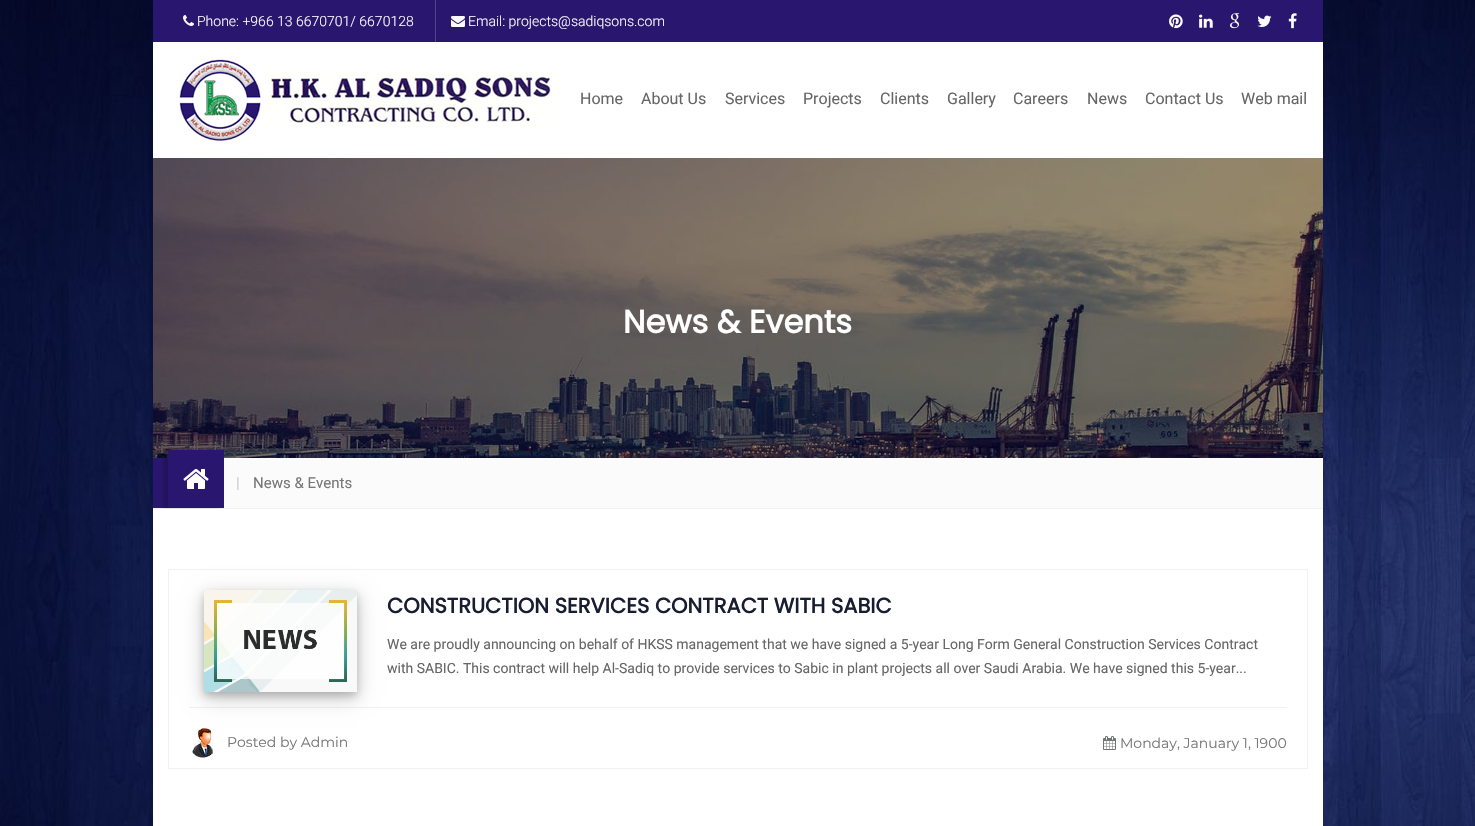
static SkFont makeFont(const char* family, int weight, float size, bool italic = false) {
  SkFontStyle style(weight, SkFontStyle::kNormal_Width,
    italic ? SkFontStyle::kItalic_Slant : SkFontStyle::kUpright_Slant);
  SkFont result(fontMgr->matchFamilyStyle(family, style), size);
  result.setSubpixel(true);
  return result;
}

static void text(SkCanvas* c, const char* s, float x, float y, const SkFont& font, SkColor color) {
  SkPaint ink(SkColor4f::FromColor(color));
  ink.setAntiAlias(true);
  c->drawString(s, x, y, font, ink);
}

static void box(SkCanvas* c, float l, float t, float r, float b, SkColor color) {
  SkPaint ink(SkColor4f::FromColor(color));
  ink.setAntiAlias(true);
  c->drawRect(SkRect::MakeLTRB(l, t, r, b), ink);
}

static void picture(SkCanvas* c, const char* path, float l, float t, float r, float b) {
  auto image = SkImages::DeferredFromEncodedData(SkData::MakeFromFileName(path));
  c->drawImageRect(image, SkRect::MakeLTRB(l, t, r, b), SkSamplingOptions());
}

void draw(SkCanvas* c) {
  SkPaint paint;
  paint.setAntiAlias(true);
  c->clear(0xffffffff);
  picture(c, "img_01.png", 0, 0, 1475, 826);
  box(c, 153, 0, 1323, 42, 0xff29166f);
  picture(c, "img_02.png", 183, 15, 194, 26);
  SkFont face1 = makeFont("Roboto", 300, 14);
  text(c, "Phone: +966 13 6670701/ 6670128", 197, 26, face1, 0xffffffff);
  box(c, 435, 0, 436, 42, 0xff524486);
  picture(c, "img_03.png", 451, 16, 465, 27);
  text(c, "Email: projects@sadiqsons.com", 468, 26, face1, 0xffffffff);
  picture(c, "img_04.png", 1169, 14, 1183, 29);
  picture(c, "img_05.png", 1199, 14, 1213, 28);
  picture(c, "img_06.png", 1230, 13, 1240, 29);
  picture(c, "img_07.png", 1257, 15, 1272, 27);
  picture(c, "img_08.png", 1288, 13, 1297, 29);
  box(c, 153, 42, 1323, 158, 0xffffffff);
  picture(c, "img_09.png", 179, 59, 558, 141);
  SkFont face2 = makeFont("Roboto", 400, 16);
  text(c, "Home", 580, 104, face2, 0xff666666);
  text(c, "About Us", 641, 104, face2, 0xff666666);
  text(c, "Services", 725, 104, face2, 0xff666666);
  text(c, "Projects", 803, 104, face2, 0xff666666);
  text(c, "Clients", 880, 104, face2, 0xff666666);
  text(c, "Gallery", 947, 104, face2, 0xff666666);
  text(c, "Careers", 1013, 104, face2, 0xff666666);
  text(c, "News", 1087, 104, face2, 0xff666666);
  text(c, "Contact Us", 1145, 104, face2, 0xff666666);
  text(c, "Web mail", 1241, 104, face2, 0xff666666);
  picture(c, "img_10.png", 153, 158, 1323, 458);
  SkFont face3 = makeFont("Poppins", 700, 32);
  text(c, "News & Events", 623, 333, face3, 0xffffffff);
  box(c, 224, 458, 1323, 508, 0xfffbfbfb);
  box(c, 153, 508, 1323, 509, 0xfff1f1f1);
  box(c, 153, 458, 168, 508, 0xff29166f);
  paint.setColor(0x29000000);
  paint.setMaskFilter(SkMaskFilter::MakeBlur(kNormal_SkBlurStyle, 1.5f));
  c->drawRect(SkRect::MakeLTRB(163, 450, 219, 508), paint);
  paint.setMaskFilter(nullptr);
  box(c, 168, 450, 224, 508, 0xff29166f);
  picture(c, "img_11.png", 183, 469, 209, 489);
  SkFont face4 = makeFont("Roboto", 400, 15);
  text(c, "|", 236, 488, face4, 0xffcccccc);
  text(c, "News & Events", 253, 488, face4, 0xff777777);
  box(c, 153, 509, 1323, 826, 0xffffffff);
  paint.setStyle(SkPaint::kStroke_Style);
  paint.setStrokeWidth(1);
  paint.setColor(0xfff1f1f1);
  c->drawRect(SkRect::MakeLTRB(168.5f, 569.5f, 1307.5f, 768.5f), paint);
  box(c, 189, 707, 1287, 708, 0xfff1f1f1);
  picture(c, "img_13.png", 190, 728, 213, 758);
  paint.setStyle(SkPaint::kFill_Style);
  paint.setColor(0x30000000);
  paint.setMaskFilter(SkMaskFilter::MakeBlur(kNormal_SkBlurStyle, 10));
  c->drawRect(SkRect::MakeLTRB(204, 596, 357, 698), paint);
  paint.setMaskFilter(nullptr);
  paint.setColor(0x33000000);
  paint.setMaskFilter(SkMaskFilter::MakeBlur(kNormal_SkBlurStyle, 4));
  c->drawRect(SkRect::MakeLTRB(204, 594, 357, 696), paint);
  paint.setMaskFilter(nullptr);
  picture(c, "img_12.png", 204, 590, 357, 692);
  SkFont face5 = makeFont("Poppins", 700, 21);
  text(c, "CONSTRUCTION SERVICES CONTRACT WITH SABIC", 387, 613, face5, 0xff181d31);
  SkFont face6 = makeFont("Roboto", 400, 14);
  text(c, "We are proudly announcing on behalf of HKSS management that we have signed a 5-year Long Form General Construction Services Contract", 387, 649, face6, 0xff666666);
  text(c, "with SABIC. This contract will help Al-Sadiq to provide services to Sabic in plant projects all over Saudi Arabia. We have signed this 5-year...", 387, 673, face6, 0xff666666);
  SkFont face7 = makeFont("Montserrat", 100, 14);
  text(c, "Posted by Admin", 227, 747, face7, 0xff777777);
  picture(c, "img_14.png", 1103, 736, 1116, 750);
  text(c, "Monday, January 1, 1900", 1120, 748, face7, 0xff777777);
}
